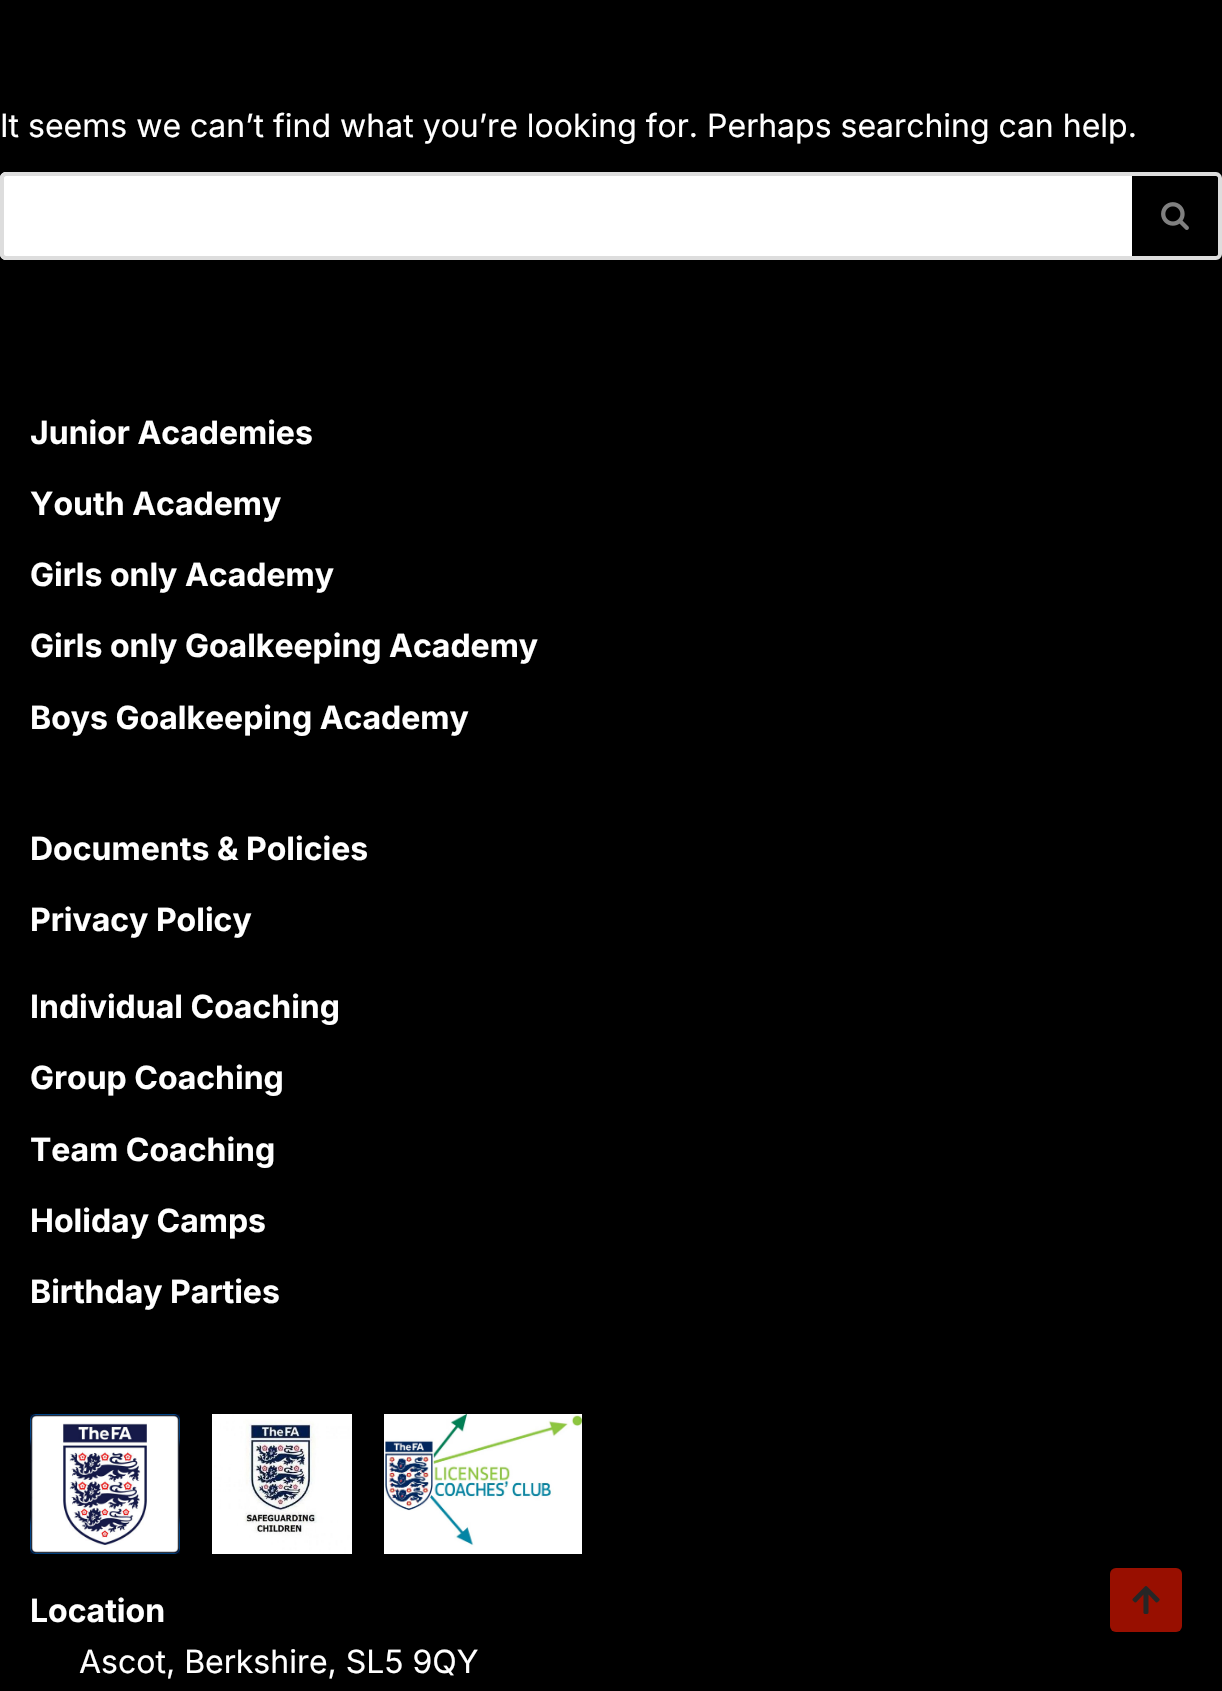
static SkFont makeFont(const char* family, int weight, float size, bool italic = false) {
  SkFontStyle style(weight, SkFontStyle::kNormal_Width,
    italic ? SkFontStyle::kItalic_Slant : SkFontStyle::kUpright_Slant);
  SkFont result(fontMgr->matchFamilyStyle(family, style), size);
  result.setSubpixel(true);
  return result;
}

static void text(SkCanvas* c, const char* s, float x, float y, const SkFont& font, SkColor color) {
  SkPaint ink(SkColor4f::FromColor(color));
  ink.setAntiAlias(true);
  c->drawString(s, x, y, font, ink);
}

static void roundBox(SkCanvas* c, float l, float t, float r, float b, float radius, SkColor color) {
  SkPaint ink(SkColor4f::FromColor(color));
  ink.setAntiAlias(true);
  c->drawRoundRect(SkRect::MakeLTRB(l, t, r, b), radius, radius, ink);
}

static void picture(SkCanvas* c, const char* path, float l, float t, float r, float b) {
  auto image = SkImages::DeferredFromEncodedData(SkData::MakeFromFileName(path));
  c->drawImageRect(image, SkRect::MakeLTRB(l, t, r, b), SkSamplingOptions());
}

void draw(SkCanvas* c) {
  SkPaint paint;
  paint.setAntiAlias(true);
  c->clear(0xff000000);
  SkFont face1 = makeFont("Inter", 400, 32);
  text(c, "It seems we can’t find what you’re looking for. Perhaps searching can help.", 0, 137, face1, 0xffffffff);
  paint.setColor(0xffffffff);
  c->drawPath(SkPathBuilder().moveTo(6, 172).lineTo(1132, 172).lineTo(1132, 260).lineTo(6, 260).cubicTo(2.5f, 260, 0, 257.5f, 0, 254).lineTo(0, 178).cubicTo(0, 174.5f, 2.5f, 172, 6, 172).close().detach(), paint);
  paint.setColor(0xffdddddd);
  c->drawPath(SkPathBuilder(SkPathFillType::kEvenOdd).moveTo(6, 172).lineTo(1132, 172).lineTo(1132, 260).lineTo(6, 260).cubicTo(3, 260, 0, 257, 0, 254).lineTo(0, 178).cubicTo(0, 175, 3, 172, 6, 172).close().moveTo(6, 176).lineTo(1132, 176).lineTo(1132, 256).lineTo(6, 256).cubicTo(5, 256, 4, 255, 4, 254).lineTo(4, 178).cubicTo(4, 177, 5, 176, 6, 176).close().detach(), paint);
  c->drawPath(SkPathBuilder(SkPathFillType::kEvenOdd).moveTo(1132, 172).lineTo(1216, 172).cubicTo(1219, 172, 1222, 175, 1222, 178).lineTo(1222, 254).cubicTo(1222, 257, 1219, 260, 1216, 260).lineTo(1132, 260).close().moveTo(1132, 176).lineTo(1216, 176).cubicTo(1217, 176, 1218, 177, 1218, 178).lineTo(1218, 254).cubicTo(1218, 255, 1217, 256, 1216, 256).lineTo(1132, 256).close().detach(), paint);
  picture(c, "img_01.png", 1161, 202, 1189, 230);
  SkFont face2 = makeFont("Inter", 700, 32);
  text(c, "Junior Academies", 30, 444, face2, 0xffffffff);
  text(c, "Youth Academy", 30, 515, face2, 0xffffffff);
  text(c, "Girls only Academy", 30, 586, face2, 0xffffffff);
  text(c, "Girls only Goalkeeping Academy", 30, 657, face2, 0xffffffff);
  text(c, "Boys Goalkeeping Academy", 30, 729, face2, 0xffffffff);
  text(c, "Documents & Policies", 30, 860, face2, 0xffffffff);
  text(c, "Privacy Policy", 30, 931, face2, 0xffffffff);
  text(c, "Individual Coaching", 30, 1018, face2, 0xffffffff);
  text(c, "Group Coaching", 30, 1089, face2, 0xffffffff);
  text(c, "Team Coaching", 30, 1161, face2, 0xffffffff);
  text(c, "Holiday Camps", 30, 1232, face2, 0xffffffff);
  text(c, "Birthday Parties", 30, 1303, face2, 0xffffffff);
  picture(c, "img_02.png", 30, 1414, 180, 1554);
  picture(c, "img_03.png", 212, 1414, 352, 1554);
  picture(c, "img_04.png", 384, 1414, 582, 1554);
  text(c, "Location", 30, 1622, face2, 0xffffffff);
  text(c, "Ascot, Berkshire, SL5 9QY", 79, 1673, face1, 0xffffffff);
  roundBox(c, 1110, 1568, 1182, 1632, 6, 0xff980f00);
  picture(c, "img_05.png", 1132, 1586, 1160, 1614);
}
